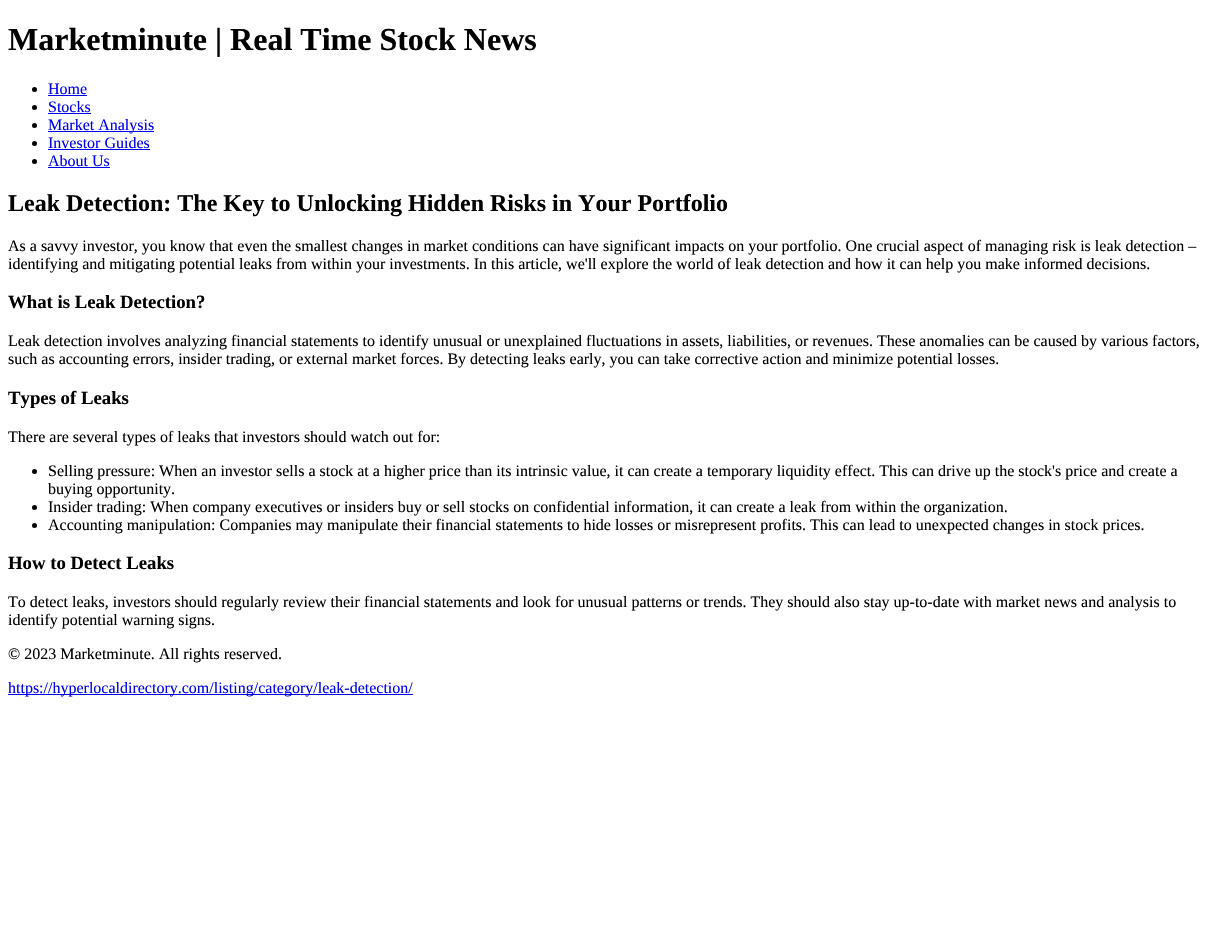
static SkFont makeFont(const char* family, int weight, float size, bool italic = false) {
  SkFontStyle style(weight, SkFontStyle::kNormal_Width,
    italic ? SkFontStyle::kItalic_Slant : SkFontStyle::kUpright_Slant);
  SkFont result(fontMgr->matchFamilyStyle(family, style), size);
  result.setSubpixel(true);
  return result;
}

static void text(SkCanvas* c, const char* s, float x, float y, const SkFont& font, SkColor color) {
  SkPaint ink(SkColor4f::FromColor(color));
  ink.setAntiAlias(true);
  c->drawString(s, x, y, font, ink);
}

static void box(SkCanvas* c, float l, float t, float r, float b, SkColor color) {
  SkPaint ink(SkColor4f::FromColor(color));
  ink.setAntiAlias(true);
  c->drawRect(SkRect::MakeLTRB(l, t, r, b), ink);
}

void draw(SkCanvas* c) {
  SkPaint paint;
  paint.setAntiAlias(true);
  c->clear(0xffffffff);
  SkFont face1 = makeFont("Liberation Serif", 700, 32);
  text(c, "Marketminute | Real Time Stock News", 8, 50, face1, 0xff000000);
  paint.setColor(0xff000000);
  c->drawCircle(34.5f, 89.5f, 2.5f, paint);
  SkFont face2 = makeFont("Liberation Serif", 400, 16);
  text(c, "Home", 48, 94, face2, 0xff0000ee);
  box(c, 48, 95, 87, 96, 0xff0000ee);
  c->drawCircle(34.5f, 107.5f, 2.5f, paint);
  text(c, "Stocks", 48, 112, face2, 0xff0000ee);
  box(c, 48, 113, 91, 114, 0xff0000ee);
  c->drawCircle(34.5f, 125.5f, 2.5f, paint);
  box(c, 48, 131, 154, 132, 0xff0000ee);
  text(c, "Market Analysis", 48, 130, face2, 0xff0000ee);
  c->drawCircle(34.5f, 143.5f, 2.5f, paint);
  text(c, "Investor Guides", 48, 148, face2, 0xff0000ee);
  box(c, 48, 149, 150, 150, 0xff0000ee);
  c->drawCircle(34.5f, 161.5f, 2.5f, paint);
  text(c, "About Us", 48, 166, face2, 0xff0000ee);
  box(c, 48, 167, 110, 168, 0xff0000ee);
  SkFont face3 = makeFont("Liberation Serif", 700, 24);
  text(c, "Leak Detection: The Key to Unlocking Hidden Risks in Your Portfolio", 8, 211, face3, 0xff000000);
  text(c, "As a savvy investor, you know that even the smallest changes in market conditions can have significant impacts on your portfolio. One crucial aspect of managing risk is leak detection –", 8, 251, face2, 0xff000000);
  text(c, "identifying and mitigating potential leaks from within your investments. In this article, we'll explore the world of leak detection and how it can help you make informed decisions.", 8, 269, face2, 0xff000000);
  SkFont face4 = makeFont("Liberation Serif", 700, 18.75f);
  text(c, "What is Leak Detection?", 8, 308, face4, 0xff000000);
  text(c, "Leak detection involves analyzing financial statements to identify unusual or unexplained fluctuations in assets, liabilities, or revenues. These anomalies can be caused by various factors,", 8, 346, face2, 0xff000000);
  text(c, "such as accounting errors, insider trading, or external market forces. By detecting leaks early, you can take corrective action and minimize potential losses.", 8, 364, face2, 0xff000000);
  text(c, "Types of Leaks", 8, 404, face4, 0xff000000);
  text(c, "There are several types of leaks that investors should watch out for:", 8, 442, face2, 0xff000000);
  c->drawCircle(34.5f, 471.5f, 2.5f, paint);
  text(c, "Selling pressure: When an investor sells a stock at a higher price than its intrinsic value, it can create a temporary liquidity effect. This can drive up the stock's price and create a", 48, 476, face2, 0xff000000);
  text(c, "buying opportunity.", 48, 494, face2, 0xff000000);
  c->drawCircle(34.5f, 507.5f, 2.5f, paint);
  text(c, "Insider trading: When company executives or insiders buy or sell stocks on confidential information, it can create a leak from within the organization.", 48, 512, face2, 0xff000000);
  c->drawCircle(34.5f, 525.5f, 2.5f, paint);
  text(c, "Accounting manipulation: Companies may manipulate their financial statements to hide losses or misrepresent profits. This can lead to unexpected changes in stock prices.", 48, 530, face2, 0xff000000);
  text(c, "How to Detect Leaks", 8, 569, face4, 0xff000000);
  text(c, "To detect leaks, investors should regularly review their financial statements and look for unusual patterns or trends. They should also stay up-to-date with market news and analysis to", 8, 607, face2, 0xff000000);
  text(c, "identify potential warning signs.", 8, 625, face2, 0xff000000);
  text(c, "© 2023 Marketminute. All rights reserved.", 8, 659, face2, 0xff000000);
  box(c, 8, 694, 413, 695, 0xff0000ee);
  text(c, "https://hyperlocaldirectory.com/listing/category/leak-detection/", 8, 693, face2, 0xff0000ee);
}
